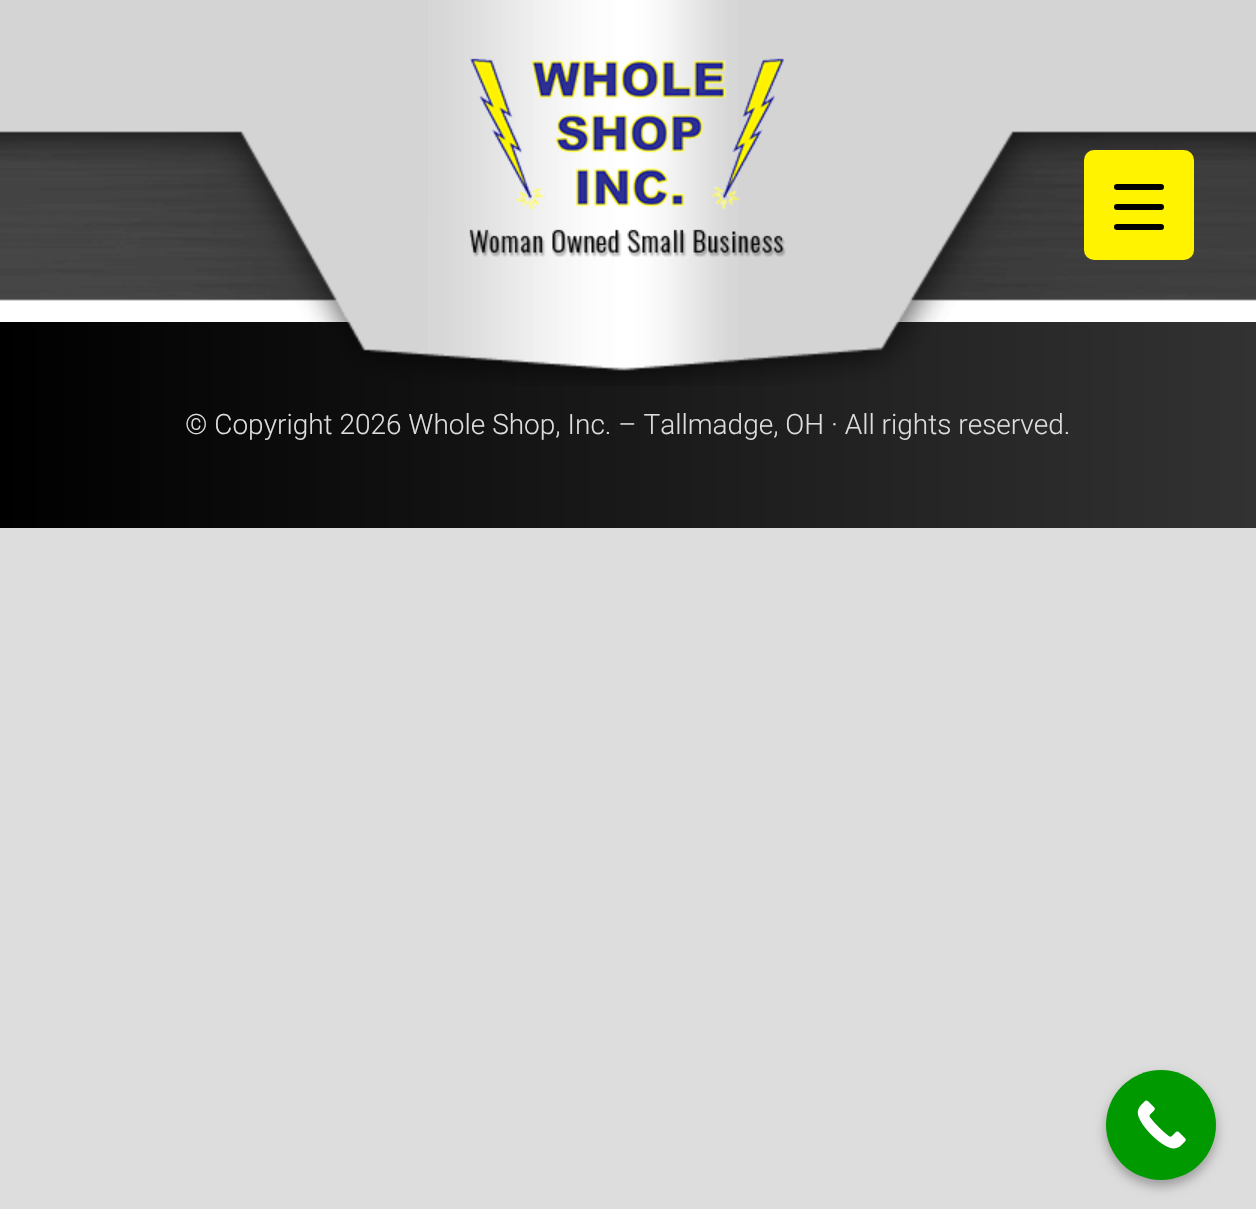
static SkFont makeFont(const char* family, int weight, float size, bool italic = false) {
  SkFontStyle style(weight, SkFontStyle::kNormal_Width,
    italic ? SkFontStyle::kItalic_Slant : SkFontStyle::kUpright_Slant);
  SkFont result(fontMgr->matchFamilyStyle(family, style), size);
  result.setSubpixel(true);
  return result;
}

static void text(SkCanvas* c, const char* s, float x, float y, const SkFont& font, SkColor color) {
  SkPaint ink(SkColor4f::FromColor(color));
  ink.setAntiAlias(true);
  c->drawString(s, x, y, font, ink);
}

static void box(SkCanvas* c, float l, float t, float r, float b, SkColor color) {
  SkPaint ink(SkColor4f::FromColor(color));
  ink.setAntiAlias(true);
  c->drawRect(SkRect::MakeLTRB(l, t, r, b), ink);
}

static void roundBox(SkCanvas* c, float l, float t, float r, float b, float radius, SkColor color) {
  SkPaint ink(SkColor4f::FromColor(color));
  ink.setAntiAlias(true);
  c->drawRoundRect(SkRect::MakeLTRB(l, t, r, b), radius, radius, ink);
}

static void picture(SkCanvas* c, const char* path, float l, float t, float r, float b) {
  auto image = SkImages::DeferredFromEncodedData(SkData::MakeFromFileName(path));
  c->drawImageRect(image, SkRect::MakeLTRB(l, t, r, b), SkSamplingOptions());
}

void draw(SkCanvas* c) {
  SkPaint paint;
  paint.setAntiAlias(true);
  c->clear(0xffdddddd);
  box(c, 0, 132, 1256, 322, 0xffffffff);
  {
    const SkColor colors[] = {0xff000000, 0xff323232};
    const float stops[] = {0, 1};
    const SkPoint ends[] = {{0, 425}, {1256, 425}};
    paint.setShader(SkGradientShader::MakeLinear(ends, colors, stops, 2, SkTileMode::kClamp));
    paint.setAlpha(255);
  }
  c->drawRect(SkRect::MakeLTRB(0, 322, 1256, 528), paint);
  picture(c, "img_01.png", 0, 0, 1256, 386);
  roundBox(c, 1084, 150, 1194, 260, 10, 0xfffff300);
  roundBox(c, 1114, 204, 1164, 210, 3, 0xff000000);
  roundBox(c, 1114, 184, 1164, 190, 3, 0xff000000);
  roundBox(c, 1114, 224, 1164, 230, 3, 0xff000000);
  picture(c, "img_02.png", 469, 58, 786, 257);
  SkFont face1 = makeFont("Roboto", 300, 28);
  text(c, "© Copyright 2026 Whole Shop, Inc. – Tallmadge, OH · All rights reserved.", 185, 434, face1, 0xffdddddd);
  paint.setShader(nullptr);
  paint.setColor(0x4d000000);
  paint.setMaskFilter(SkMaskFilter::MakeBlur(kNormal_SkBlurStyle, 6));
  c->drawRoundRect(SkRect::MakeLTRB(1106, 1076, 1216, 1186), 55, 55, paint);
  paint.setMaskFilter(nullptr);
  paint.setColor(0xff009900);
  c->drawCircle(1161, 1125, 55, paint);
  picture(c, "img_03.png", 1137, 1100, 1186, 1149);
}
